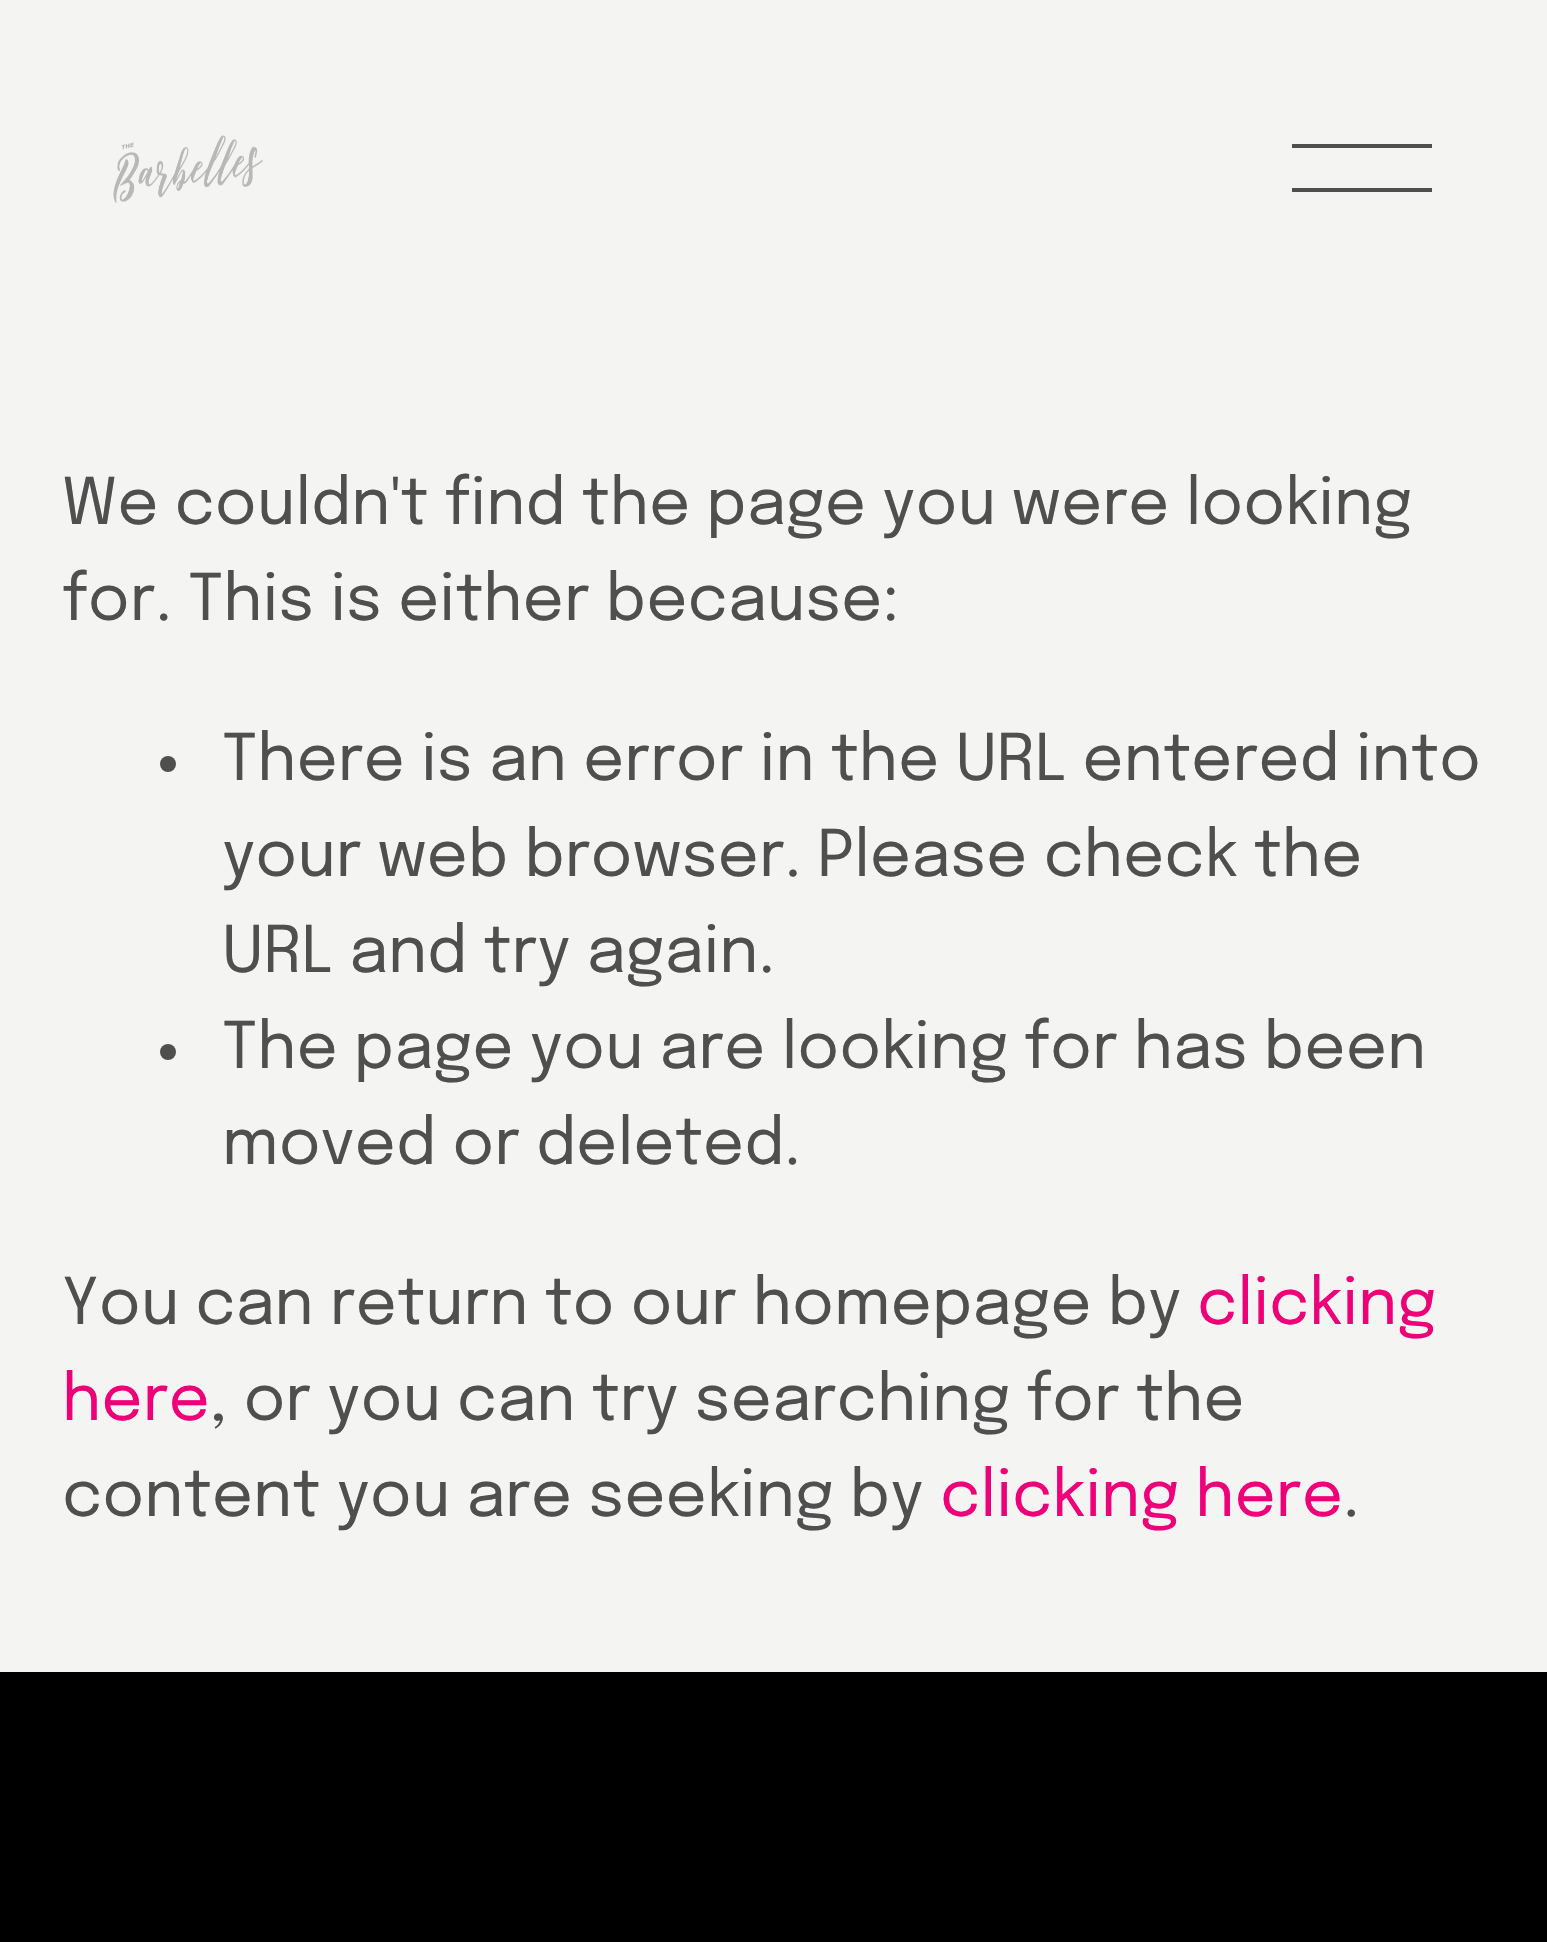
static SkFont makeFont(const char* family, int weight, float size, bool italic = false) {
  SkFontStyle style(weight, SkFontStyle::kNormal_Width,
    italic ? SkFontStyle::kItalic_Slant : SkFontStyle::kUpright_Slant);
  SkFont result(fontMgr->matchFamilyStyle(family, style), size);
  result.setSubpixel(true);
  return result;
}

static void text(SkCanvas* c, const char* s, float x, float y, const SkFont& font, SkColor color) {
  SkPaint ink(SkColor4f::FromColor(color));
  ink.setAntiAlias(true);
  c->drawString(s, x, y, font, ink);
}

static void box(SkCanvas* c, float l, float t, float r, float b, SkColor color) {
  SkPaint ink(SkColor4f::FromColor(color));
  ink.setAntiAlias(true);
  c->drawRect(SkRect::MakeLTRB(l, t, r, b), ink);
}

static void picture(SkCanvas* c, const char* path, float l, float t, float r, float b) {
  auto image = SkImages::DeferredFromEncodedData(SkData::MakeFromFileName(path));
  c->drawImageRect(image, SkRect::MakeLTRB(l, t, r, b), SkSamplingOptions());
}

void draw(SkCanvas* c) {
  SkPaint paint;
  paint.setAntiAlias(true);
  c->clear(0xfff4f4f3);
  picture(c, "img_01.png", 113, 135, 263, 203);
  box(c, 1292, 144, 1432, 148, 0xff4f4f4f);
  box(c, 1292, 188, 1432, 192, 0xff4f4f4f);
  SkFont face1 = makeFont("Epilogue", 400, 64);
  text(c, "We couldn't find the page you were looking", 62, 524, face1, 0xff4f4f4f);
  text(c, "for. This is either because:", 62, 620, face1, 0xff4f4f4f);
  paint.setColor(0xff4f4f4f);
  c->drawCircle(168, 764, 8, paint);
  text(c, "There is an error in the URL entered into", 222, 780, face1, 0xff4f4f4f);
  text(c, "your web browser. Please check the", 222, 876, face1, 0xff4f4f4f);
  text(c, "URL and try again.", 222, 972, face1, 0xff4f4f4f);
  c->drawCircle(168, 1052, 8, paint);
  text(c, "The page you are looking for has been", 222, 1068, face1, 0xff4f4f4f);
  text(c, "moved or deleted.", 222, 1164, face1, 0xff4f4f4f);
  text(c, "You can return to our homepage by", 62, 1324, face1, 0xff4f4f4f);
  text(c, "clicking", 1197, 1324, face1, 0xffed0078);
  text(c, "here", 62, 1420, face1, 0xffed0078);
  text(c, ", or you can try searching for the", 210, 1420, face1, 0xff4f4f4f);
  text(c, "content you are seeking by", 62, 1516, face1, 0xff4f4f4f);
  text(c, "clicking here", 940, 1516, face1, 0xffed0078);
  text(c, ".", 1343, 1516, face1, 0xff4f4f4f);
  box(c, 0, 1672, 1547, 1942, 0xff000000);
}
